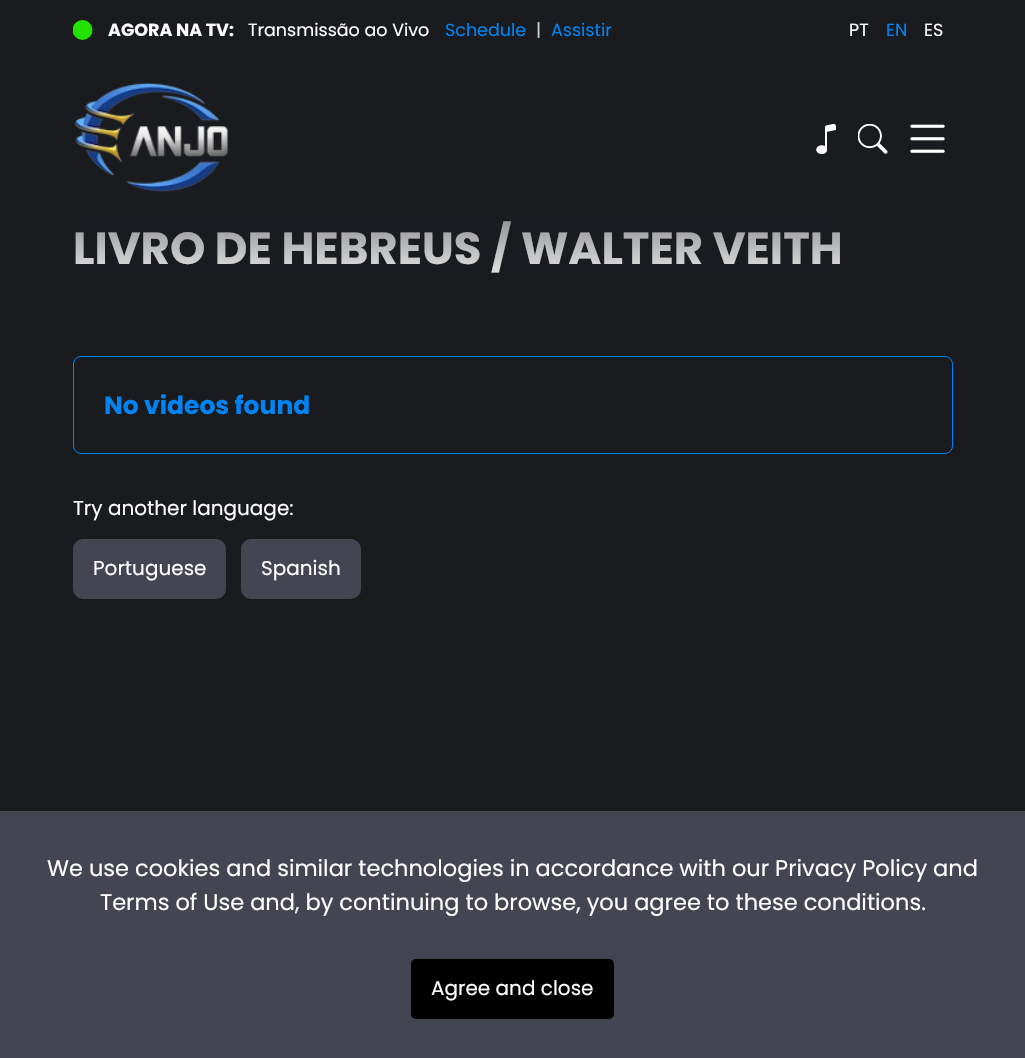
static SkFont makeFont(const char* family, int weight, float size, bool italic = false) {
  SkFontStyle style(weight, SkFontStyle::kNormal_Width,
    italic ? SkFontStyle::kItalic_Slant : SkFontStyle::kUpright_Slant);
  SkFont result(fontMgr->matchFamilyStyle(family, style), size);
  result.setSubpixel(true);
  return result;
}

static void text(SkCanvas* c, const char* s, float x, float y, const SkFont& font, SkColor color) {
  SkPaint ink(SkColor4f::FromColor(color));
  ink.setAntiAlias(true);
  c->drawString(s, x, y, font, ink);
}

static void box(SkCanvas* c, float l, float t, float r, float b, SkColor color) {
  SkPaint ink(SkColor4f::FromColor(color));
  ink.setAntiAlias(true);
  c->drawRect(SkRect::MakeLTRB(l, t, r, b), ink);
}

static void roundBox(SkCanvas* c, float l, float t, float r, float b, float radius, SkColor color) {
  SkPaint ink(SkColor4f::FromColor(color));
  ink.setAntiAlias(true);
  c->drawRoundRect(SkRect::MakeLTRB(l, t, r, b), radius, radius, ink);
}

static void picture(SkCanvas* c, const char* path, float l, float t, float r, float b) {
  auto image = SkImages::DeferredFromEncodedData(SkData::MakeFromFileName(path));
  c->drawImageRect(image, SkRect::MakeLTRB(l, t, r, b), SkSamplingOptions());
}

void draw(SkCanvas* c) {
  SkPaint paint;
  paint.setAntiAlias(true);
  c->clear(0xff191b1f);
  c->save();
  c->clipRect(SkRect::MakeLTRB(73, 20, 93, 40));
  paint.setColor(0xff23e200);
  c->drawCircle(82.5f, 30, 10, paint);
  c->restore();
  SkFont face1 = makeFont("Poppins", 700, 17.5f);
  text(c, "AGORA NA TV:", 108, 36, face1, 0xffffffff);
  SkFont face2 = makeFont("Poppins", 400, 17.5f);
  text(c, "Transmissão ao Vivo", 248, 36, face2, 0xffffffff);
  text(c, "Schedule", 445, 36, face2, 0xff0084f4);
  text(c, "|", 536, 36, face2, 0xffd1d1d2);
  text(c, "Assistir", 551, 36, face2, 0xff0084f4);
  text(c, "PT", 849, 36, face2, 0xffffffff);
  text(c, "EN", 886, 36, face2, 0xff0084f4);
  text(c, "ES", 924, 36, face2, 0xffffffff);
  SkFont face3 = makeFont("Poppins", 700, 45);
  text(c, "LIVRO DE HEBREUS / WALTER VEITH", 73, 264, face3, 0xffffffff);
  {
    const SkColor colors[] = {0x00191b1f, 0xbf191b1f, 0xff191b1f};
    const float stops[] = {0, 0.5f, 1};
    const SkPoint ends[] = {{513, 296}, {513, 50}};
    paint.setShader(SkGradientShader::MakeLinear(ends, colors, stops, 3, SkTileMode::kClamp));
    paint.setAlpha(255);
  }
  c->drawRect(SkRect::MakeLTRB(75, 221, 840, 273), paint);
  picture(c, "img_01.png", 74, 82, 229, 192);
  picture(c, "img_02.png", 816, 124, 836, 155);
  picture(c, "img_03.png", 858, 124, 888, 154);
  picture(c, "img_04.png", 910, 124, 945, 153);
  paint.setStyle(SkPaint::kStroke_Style);
  paint.setStrokeWidth(1);
  paint.setShader(nullptr);
  paint.setColor(0xff0084f4);
  c->drawRoundRect(SkRect::MakeLTRB(73.5f, 356.5f, 952.5f, 453.5f), 7.5f, 7.5f, paint);
  SkFont face4 = makeFont("Poppins", 700, 25);
  text(c, "No videos found", 104, 414, face4, 0xff0084f4);
  SkFont face5 = makeFont("Poppins", 400, 20);
  text(c, "Try another language:", 73, 515, face5, 0xffffffff);
  roundBox(c, 73, 539, 226, 599, 10, 0xff434553);
  text(c, "Portuguese", 93, 575, face5, 0xffffffff);
  roundBox(c, 241, 539, 361, 599, 10, 0xff434553);
  text(c, "Spanish", 261, 575, face5, 0xffffffff);
  box(c, 0, 811, 1025, 1058, 0xff434553);
  SkFont face6 = makeFont("Poppins", 400, 22.5f);
  text(c, "We use cookies and similar technologies in accordance with our Privacy Policy and", 47, 876, face6, 0xffffffff);
  text(c, "Terms of Use and, by continuing to browse, you agree to these conditions.", 100, 910, face6, 0xffffffff);
  roundBox(c, 411, 959, 614, 1019, 5, 0xff000000);
  text(c, "Agree and close", 431, 995, face5, 0xffffffff);
}
